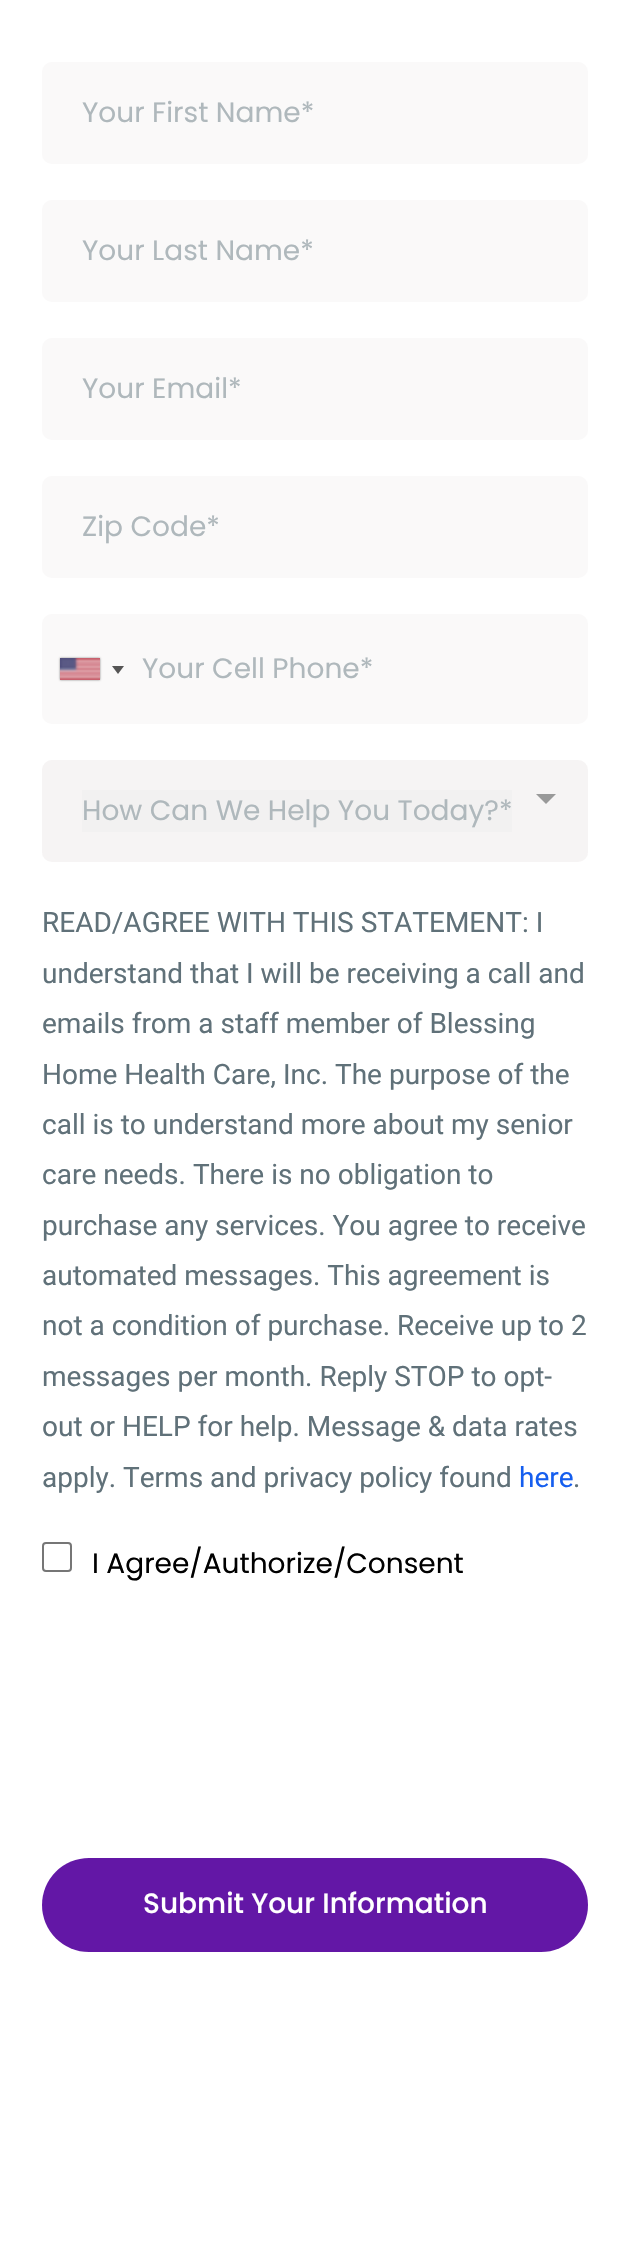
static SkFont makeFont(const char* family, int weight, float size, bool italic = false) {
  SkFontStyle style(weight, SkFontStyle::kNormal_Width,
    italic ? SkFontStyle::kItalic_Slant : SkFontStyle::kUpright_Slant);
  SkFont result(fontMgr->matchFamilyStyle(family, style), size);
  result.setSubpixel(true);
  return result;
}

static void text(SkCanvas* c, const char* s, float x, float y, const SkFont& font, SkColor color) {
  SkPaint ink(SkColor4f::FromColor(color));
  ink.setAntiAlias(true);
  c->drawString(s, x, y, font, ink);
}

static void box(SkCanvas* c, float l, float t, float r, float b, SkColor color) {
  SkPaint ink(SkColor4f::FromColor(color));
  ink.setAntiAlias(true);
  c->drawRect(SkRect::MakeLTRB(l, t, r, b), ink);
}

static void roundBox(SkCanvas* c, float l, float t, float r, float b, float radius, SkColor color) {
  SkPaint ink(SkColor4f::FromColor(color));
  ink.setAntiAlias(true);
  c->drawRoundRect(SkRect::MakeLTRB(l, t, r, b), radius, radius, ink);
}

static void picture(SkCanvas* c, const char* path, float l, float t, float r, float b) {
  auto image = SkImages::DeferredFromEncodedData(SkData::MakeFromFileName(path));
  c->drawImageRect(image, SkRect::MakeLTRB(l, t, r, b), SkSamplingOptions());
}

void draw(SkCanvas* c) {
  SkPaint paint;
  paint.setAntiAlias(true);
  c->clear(0xffffffff);
  roundBox(c, 42, 62, 588, 164, 10, 0xfffaf9f9);
  SkFont face1 = makeFont("Poppins", 400, 28);
  text(c, "Your First Name*", 82, 122, face1, 0xffafb8bc);
  roundBox(c, 42, 200, 588, 302, 10, 0xfffaf9f9);
  text(c, "Your Last Name*", 82, 260, face1, 0xffafb8bc);
  roundBox(c, 42, 338, 588, 440, 10, 0xfffaf9f9);
  text(c, "Your Email*", 82, 398, face1, 0xffafb8bc);
  roundBox(c, 42, 476, 588, 578, 10, 0xfffaf9f9);
  text(c, "Zip Code*", 82, 536, face1, 0xffafb8bc);
  roundBox(c, 42, 614, 588, 724, 10, 0xfffaf9f9);
  paint.setColor(0xff888888);
  paint.setMaskFilter(SkMaskFilter::MakeBlur(kNormal_SkBlurStyle, 1));
  c->drawRect(SkRect::MakeLTRB(60, 658, 100, 680), paint);
  paint.setMaskFilter(nullptr);
  picture(c, "img_01.png", 60, 658, 100, 680);
  paint.setColor(0xff555555);
  c->drawPath(SkPathBuilder().moveTo(112, 666).lineTo(124, 666).lineTo(118, 674).close().detach(), paint);
  text(c, "Your Cell Phone*", 142, 678, face1, 0xffafb8bc);
  roundBox(c, 42, 760, 588, 862, 10, 0xfffaf9f9);
  roundBox(c, 42, 760, 588, 862, 10, 0x33e4e3e3);
  box(c, 82, 790, 512, 832, 0xfff2f1f1);
  text(c, "How Can We Help You Today?*", 82, 820, face1, 0xffafb8bc);
  paint.setColor(0xff999999);
  c->drawPath(SkPathBuilder().moveTo(536, 794).lineTo(556, 794).lineTo(546, 804).close().detach(), paint);
  SkFont face2 = makeFont("Roboto", 400, 28);
  text(c, "READ/AGREE WITH THIS STATEMENT: I", 42, 932, face2, 0xff607179);
  text(c, "understand that I will be receiving a call and", 42, 983, face2, 0xff607179);
  text(c, "emails from a staff member of Blessing", 42, 1033, face2, 0xff607179);
  text(c, "Home Health Care, Inc. The purpose of the", 42, 1084, face2, 0xff607179);
  text(c, "call is to understand more about my senior", 42, 1134, face2, 0xff607179);
  text(c, "care needs. There is no obligation to", 42, 1184, face2, 0xff607179);
  text(c, "purchase any services. You agree to receive", 42, 1235, face2, 0xff607179);
  text(c, "automated messages. This agreement is", 42, 1285, face2, 0xff607179);
  text(c, "not a condition of purchase. Receive up to 2", 42, 1335, face2, 0xff607179);
  text(c, "messages per month. Reply STOP to opt-", 42, 1386, face2, 0xff607179);
  text(c, "out or HELP for help. Message & data rates", 42, 1436, face2, 0xff607179);
  text(c, "apply. Terms and privacy policy found", 42, 1487, face2, 0xff607179);
  text(c, "here", 519, 1487, face2, 0xff155eef);
  text(c, ".", 573, 1487, face2, 0xff607179);
  paint.setStyle(SkPaint::kStroke_Style);
  paint.setStrokeWidth(2);
  paint.setColor(0xff767676);
  c->drawRoundRect(SkRect::MakeLTRB(43, 1543, 71, 1571), 3, 3, paint);
  text(c, "I Agree/Authorize/Consent", 92, 1573, face1, 0xff000000);
  roundBox(c, 42, 1858, 588, 1952, 47, 0xff6317a6);
  SkFont face3 = makeFont("Poppins", 500, 28);
  text(c, "Submit Your Information", 143, 1913, face3, 0xffffffff);
}
